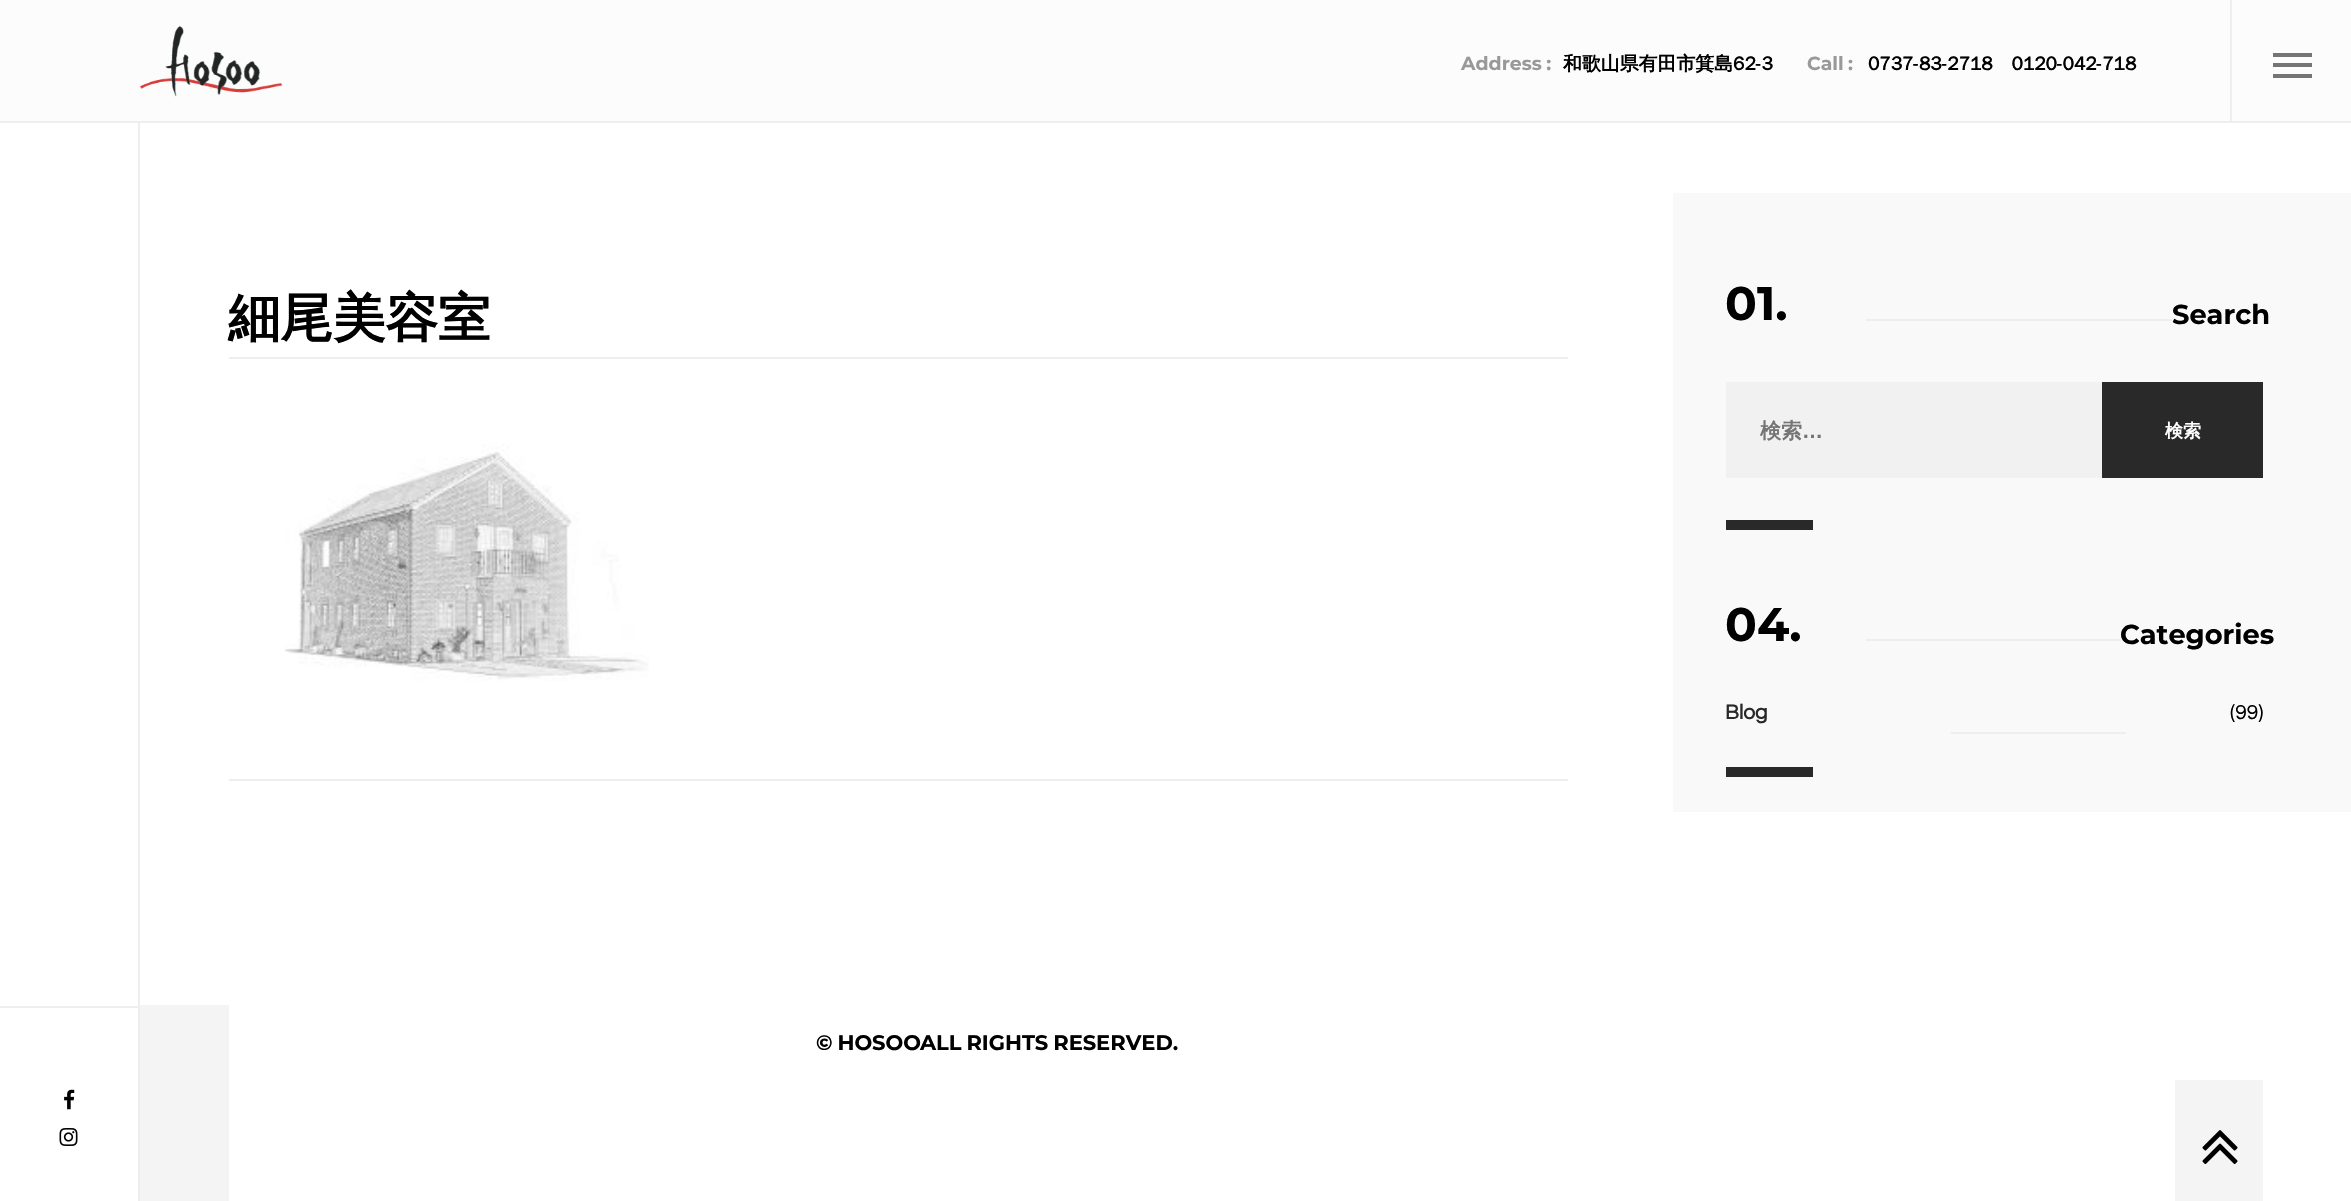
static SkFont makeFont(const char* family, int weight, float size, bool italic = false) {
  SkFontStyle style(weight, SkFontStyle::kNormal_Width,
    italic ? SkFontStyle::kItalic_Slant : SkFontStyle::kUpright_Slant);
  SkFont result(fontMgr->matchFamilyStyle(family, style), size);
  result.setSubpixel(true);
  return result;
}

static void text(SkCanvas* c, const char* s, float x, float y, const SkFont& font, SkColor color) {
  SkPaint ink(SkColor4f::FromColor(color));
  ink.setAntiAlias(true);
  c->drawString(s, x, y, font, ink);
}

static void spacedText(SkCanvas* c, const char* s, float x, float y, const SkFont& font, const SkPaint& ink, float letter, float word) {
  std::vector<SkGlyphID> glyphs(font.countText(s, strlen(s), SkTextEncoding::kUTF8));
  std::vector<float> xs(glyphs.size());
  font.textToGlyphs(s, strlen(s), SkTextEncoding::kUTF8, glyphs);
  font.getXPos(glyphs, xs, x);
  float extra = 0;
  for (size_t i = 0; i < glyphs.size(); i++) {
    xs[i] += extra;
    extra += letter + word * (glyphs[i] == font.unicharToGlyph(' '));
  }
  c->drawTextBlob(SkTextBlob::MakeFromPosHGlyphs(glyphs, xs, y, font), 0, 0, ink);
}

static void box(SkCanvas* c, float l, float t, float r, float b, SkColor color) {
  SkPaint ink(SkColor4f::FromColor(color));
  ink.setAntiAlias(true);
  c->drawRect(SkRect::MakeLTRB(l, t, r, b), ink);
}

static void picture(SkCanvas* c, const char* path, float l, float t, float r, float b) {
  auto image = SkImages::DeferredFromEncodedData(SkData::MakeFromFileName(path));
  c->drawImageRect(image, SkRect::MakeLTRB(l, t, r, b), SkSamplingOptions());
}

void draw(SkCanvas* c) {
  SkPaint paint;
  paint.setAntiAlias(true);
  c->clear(0xfff4f4f4);
  box(c, 0, 0, 2351, 121, 0xb3ffffff);
  box(c, 0, 121, 2351, 123, 0xffeeeeee);
  picture(c, "img_01.png", 140, 26, 282, 97);
  SkFont face1 = makeFont("Montserrat", 700, 18.9f);
  paint.setColor(0xff999999);
  spacedText(c, "Address :", 1461, 70, face1, paint, 0, -1);
  SkFont face2 = makeFont("WenQuanYi Zen Hei", 700, 18.9f);
  text(c, "和歌山県有田市箕島62-3", 1563, 70, face2, 0xff000000);
  spacedText(c, "Call :", 1807, 70, face1, paint, 0, -1);
  text(c, "0737-83-2718　0120-042-718", 1868, 70, face2, 0xff000000);
  box(c, 2230, 0, 2232, 123, 0xffeeeeee);
  box(c, 2273, 53, 2312, 57, 0xff757575);
  box(c, 2273, 63, 2312, 67, 0xff757575);
  box(c, 2273, 74, 2312, 78, 0xff757575);
  box(c, 0, 123, 138, 1201, 0xffffffff);
  box(c, 138, 123, 140, 1201, 0xffeeeeee);
  box(c, 0, 1006, 138, 1008, 0xffeeeeee);
  picture(c, "img_02.png", 64, 1089, 75, 1110);
  picture(c, "img_03.png", 59, 1128, 78, 1146);
  box(c, 140, 123, 2351, 1005, 0xffffffff);
  box(c, 229, 779, 1568, 781, 0xffeeeeee);
  SkFont face3 = makeFont("WenQuanYi Zen Hei", 700, 52.5f);
  text(c, "細尾美容室", 228, 336, face3, 0xff000000);
  box(c, 229, 357, 1568, 359, 0xffeeeeee);
  picture(c, "img_04.png", 285, 443, 649, 681);
  box(c, 1673, 193, 2351, 812, 0xfff9f9f9);
  SkFont face4 = makeFont("Montserrat", 700, 47);
  text(c, "01.", 1725, 320, face4, 0xff000000);
  SkFont face5 = makeFont("Montserrat", 700, 27.25f);
  text(c, "Search", 2172, 324, face5, 0xff000000);
  box(c, 1866, 319, 2172, 321, 0xffeeeeee);
  box(c, 1726, 382, 2102, 478, 0xfff1f1f1);
  SkFont face6 = makeFont("WenQuanYi Zen Hei", 700, 21);
  text(c, "検索", 1760, 438, face6, 0xff757575);
  SkFont face7 = makeFont("Liberation Sans", 700, 21);
  text(c, "…", 1802, 438, face7, 0xff757575);
  box(c, 2102, 382, 2263, 478, 0xff292929);
  SkFont face8 = makeFont("WenQuanYi Zen Hei", 700, 18);
  text(c, "検索", 2165, 437, face8, 0xffffffff);
  box(c, 1726, 520, 1813, 530, 0xff292929);
  text(c, "04.", 1725, 641, face4, 0xff000000);
  text(c, "Categories", 2120, 644, face5, 0xff000000);
  box(c, 1866, 639, 2121, 641, 0xffeeeeee);
  SkFont face9 = makeFont("Questrial", 700, 21);
  text(c, "Blog", 1725, 719, face9, 0xff292929);
  SkFont face10 = makeFont("Questrial", 400, 21);
  text(c, "(99)", 2230, 719, face10, 0xff000000);
  box(c, 1951, 732, 2126, 734, 0xffeeeeee);
  box(c, 1726, 767, 1813, 777, 0xff292929);
  box(c, 229, 1005, 2351, 1201, 0xffffffff);
  SkFont face11 = makeFont("Montserrat", 700, 21);
  paint.setColor(0xff000000);
  spacedText(c, "© HOSOO", 816, 1050, face11, paint, 0, -1);
  spacedText(c, "ALL RIGHTS RESERVED.", 920, 1050, face11, paint, 0, -1);
  box(c, 2175, 1080, 2263, 1201, 0xfff4f4f4);
  picture(c, "img_05.png", 2202, 1130, 2238, 1164);
}
